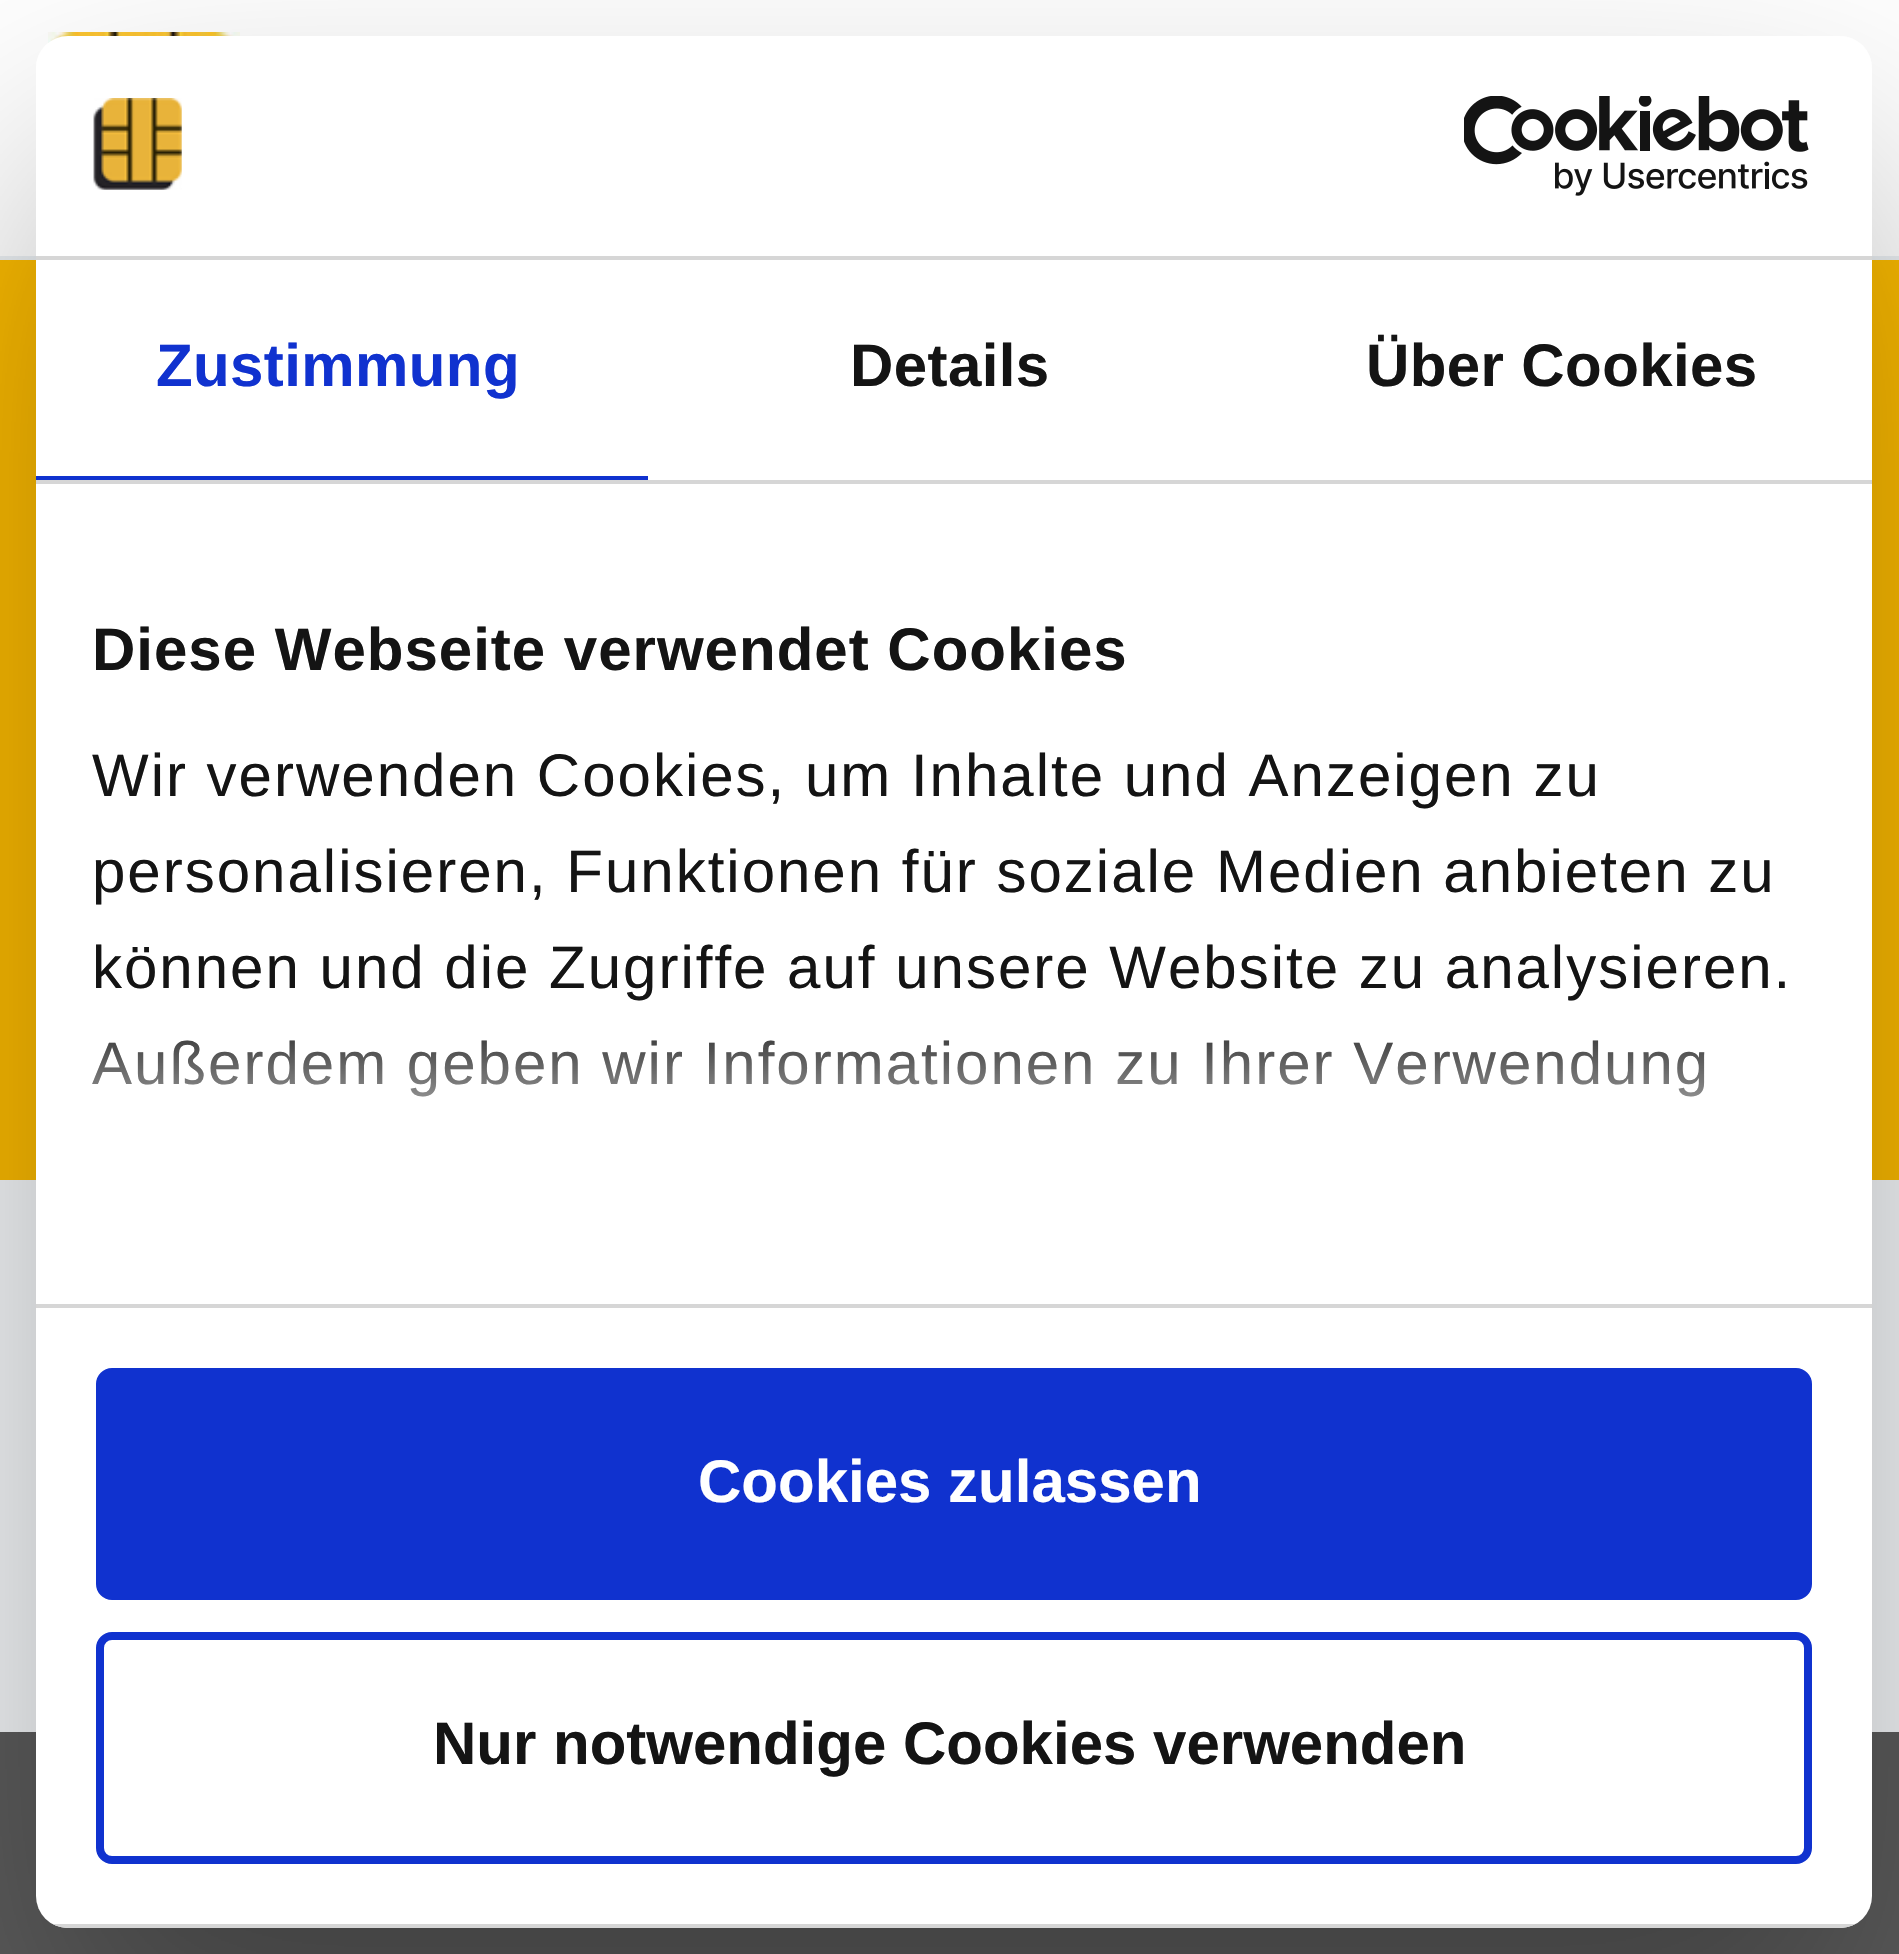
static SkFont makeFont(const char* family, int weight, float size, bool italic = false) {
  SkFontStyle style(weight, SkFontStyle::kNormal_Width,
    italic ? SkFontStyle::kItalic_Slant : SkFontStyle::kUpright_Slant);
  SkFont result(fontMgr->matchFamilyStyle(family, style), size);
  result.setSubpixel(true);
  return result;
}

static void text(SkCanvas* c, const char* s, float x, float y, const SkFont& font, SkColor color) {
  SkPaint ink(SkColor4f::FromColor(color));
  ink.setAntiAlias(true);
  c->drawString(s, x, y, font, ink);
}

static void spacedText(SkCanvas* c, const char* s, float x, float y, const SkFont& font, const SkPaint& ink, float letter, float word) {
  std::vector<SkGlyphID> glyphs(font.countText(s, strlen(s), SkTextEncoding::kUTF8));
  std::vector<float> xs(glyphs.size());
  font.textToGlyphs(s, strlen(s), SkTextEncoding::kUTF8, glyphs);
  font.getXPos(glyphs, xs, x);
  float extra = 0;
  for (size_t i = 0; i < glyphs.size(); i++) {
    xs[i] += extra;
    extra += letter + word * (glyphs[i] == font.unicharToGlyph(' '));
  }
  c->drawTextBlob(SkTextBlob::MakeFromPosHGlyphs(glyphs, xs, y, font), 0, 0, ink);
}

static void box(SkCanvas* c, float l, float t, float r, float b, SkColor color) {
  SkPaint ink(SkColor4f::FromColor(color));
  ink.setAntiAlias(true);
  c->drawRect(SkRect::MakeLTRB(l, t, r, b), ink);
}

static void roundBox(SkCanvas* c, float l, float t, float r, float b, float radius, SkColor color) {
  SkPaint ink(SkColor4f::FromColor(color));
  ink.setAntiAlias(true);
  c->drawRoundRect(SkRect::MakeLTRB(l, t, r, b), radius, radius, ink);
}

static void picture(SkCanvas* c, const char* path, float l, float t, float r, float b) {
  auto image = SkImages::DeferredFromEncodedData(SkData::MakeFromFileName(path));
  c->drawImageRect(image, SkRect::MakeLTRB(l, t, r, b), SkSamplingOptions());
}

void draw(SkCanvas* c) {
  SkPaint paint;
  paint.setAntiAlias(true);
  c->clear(0xfff5f7f9);
  box(c, 0, 0, 1899, 256, 0xffffffff);
  box(c, 0, 256, 1899, 260, 0xffebeff3);
  picture(c, "img_01.png", 48, 32, 240, 43);
  box(c, 0, 260, 1899, 1180, 0xfffbba00);
  box(c, 0, 1732, 1899, 1954, 0xff5c5c5c);
  c->save();
  c->clipPath(SkPathBuilder(SkPathFillType::kEvenOdd).moveTo(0, 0).lineTo(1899, 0).lineTo(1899, 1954).lineTo(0, 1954).close().moveTo(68, 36).lineTo(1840, 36).cubicTo(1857.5f, 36, 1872, 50.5f, 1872, 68).lineTo(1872, 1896).cubicTo(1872, 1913.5f, 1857.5f, 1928, 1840, 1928).lineTo(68, 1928).cubicTo(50.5f, 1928, 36, 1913.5f, 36, 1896).lineTo(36, 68).cubicTo(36, 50.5f, 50.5f, 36, 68, 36).close().detach(), true);
  paint.setColor(0x4d000000);
  paint.setMaskFilter(SkMaskFilter::MakeBlur(kNormal_SkBlurStyle, 136));
  c->drawRoundRect(SkRect::MakeLTRB(36, 164, 1872, 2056), 32, 32, paint);
  paint.setMaskFilter(nullptr);
  c->restore();
  roundBox(c, 36, 36, 1872, 1928, 32, 0xffffffff);
  box(c, 36, 256, 1872, 260, 0xffd6d6d6);
  picture(c, "img_02.png", 93, 98, 182, 190);
  picture(c, "img_03.png", 1464, 96, 1809, 196);
  box(c, 36, 480, 1872, 484, 0xffd6d6d6);
  box(c, 36, 476, 648, 480, 0xff1032cf);
  SkFont face1 = makeFont("Liberation Sans", 700, 60);
  paint.setColor(0xff1032cf);
  spacedText(c, "Zustimmung", 156, 386, face1, paint, 0.4f, 0);
  paint.setColor(0xff141414);
  spacedText(c, "Details", 850, 386, face1, paint, 0.4f, 0);
  spacedText(c, "Über Cookies", 1366, 386, face1, paint, 0.4f, 0);
  box(c, 36, 1304, 1872, 1308, 0xffd6d6d6);
  spacedText(c, "Diese Webseite verwendet Cookies", 92, 670, face1, paint, 1, 0);
  SkFont face2 = makeFont("Liberation Sans", 400, 60);
  spacedText(c, "Wir verwenden Cookies, um Inhalte und Anzeigen zu", 92, 796, face2, paint, 2, 0);
  spacedText(c, "personalisieren, Funktionen für soziale Medien anbieten zu", 92, 892, face2, paint, 2, 0);
  spacedText(c, "können und die Zugriffe auf unsere Website zu analysieren.", 92, 988, face2, paint, 2, 0);
  spacedText(c, "Außerdem geben wir Informationen zu Ihrer Verwendung", 92, 1084, face2, paint, 2, 0);
  {
    const SkColor colors[] = {0xffffffff, 0xccffffff, 0x00ffffff};
    const float stops[] = {0, 0.5f, 1};
    const SkPoint ends[] = {{926, 1302}, {926, 1002}};
    paint.setShader(SkGradientShader::MakeLinear(ends, colors, stops, 3, SkTileMode::kClamp));
    paint.setAlpha(255);
  }
  c->drawRect(SkRect::MakeLTRB(92, 1040, 1705, 1097), paint);
  c->save();
  c->clipPath(SkPathBuilder().moveTo(68, 36).lineTo(1840, 36).cubicTo(1857.5f, 36, 1872, 50.5f, 1872, 68).lineTo(1872, 1896).cubicTo(1872, 1913.5f, 1857.5f, 1928, 1840, 1928).lineTo(68, 1928).cubicTo(50.5f, 1928, 36, 1913.5f, 36, 1896).lineTo(36, 68).cubicTo(36, 50.5f, 50.5f, 36, 68, 36).close().detach(), true);
  box(c, 52, 1924, 1856, 1928, 0xffd6d6d6);
  c->restore();
  paint.setShader(nullptr);
  paint.setColor(0xff1032cf);
  c->drawRoundRect(SkRect::MakeLTRB(100, 1372, 1808, 1596), 12, 12, paint);
  paint.setStyle(SkPaint::kStroke_Style);
  paint.setStrokeWidth(8);
  c->drawRoundRect(SkRect::MakeLTRB(100, 1372, 1808, 1596), 12, 12, paint);
  text(c, "Cookies zulassen", 698, 1502, face1, 0xffffffff);
  c->drawRoundRect(SkRect::MakeLTRB(100, 1636, 1808, 1860), 12, 12, paint);
  text(c, "Nur notwendige Cookies verwenden", 433, 1764, face1, 0xff141414);
}
